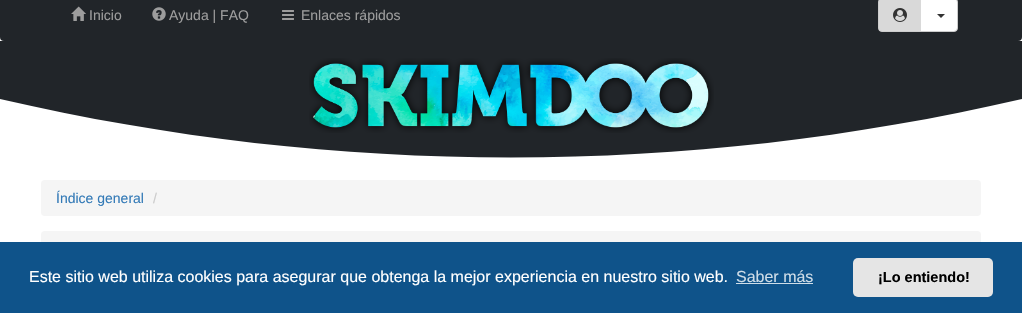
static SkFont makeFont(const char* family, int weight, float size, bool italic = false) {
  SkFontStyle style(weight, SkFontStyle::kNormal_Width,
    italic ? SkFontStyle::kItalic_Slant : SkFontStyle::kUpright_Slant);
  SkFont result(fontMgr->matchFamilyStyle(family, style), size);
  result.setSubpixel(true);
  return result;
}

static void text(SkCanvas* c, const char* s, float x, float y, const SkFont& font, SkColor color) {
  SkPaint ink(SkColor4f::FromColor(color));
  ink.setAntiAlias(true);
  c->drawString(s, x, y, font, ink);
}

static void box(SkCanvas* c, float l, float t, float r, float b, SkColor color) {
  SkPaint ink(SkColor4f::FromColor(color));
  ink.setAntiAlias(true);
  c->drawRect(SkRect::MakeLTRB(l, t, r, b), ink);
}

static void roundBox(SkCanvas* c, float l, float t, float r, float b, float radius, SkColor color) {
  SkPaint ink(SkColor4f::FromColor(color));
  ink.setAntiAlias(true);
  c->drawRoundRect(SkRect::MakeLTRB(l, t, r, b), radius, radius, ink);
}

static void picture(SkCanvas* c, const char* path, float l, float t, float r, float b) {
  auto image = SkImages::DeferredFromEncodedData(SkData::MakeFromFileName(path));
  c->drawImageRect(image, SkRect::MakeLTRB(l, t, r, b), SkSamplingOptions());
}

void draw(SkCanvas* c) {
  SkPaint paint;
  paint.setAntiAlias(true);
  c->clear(0xffffffff);
  roundBox(c, 0, -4, 1022, 41, 4, 0xff212529);
  picture(c, "img_01.png", 71, 6, 86, 21);
  SkFont face1 = makeFont("Liberation Sans", 400, 14);
  text(c, "Inicio", 89, 20, face1, 0xff9d9d9d);
  picture(c, "img_02.png", 152, 7, 166, 21);
  text(c, "Ayuda | FAQ", 169, 20, face1, 0xff9d9d9d);
  picture(c, "img_03.png", 282, 10, 294, 20);
  text(c, "Enlaces rápidos", 301, 20, face1, 0xff9d9d9d);
  paint.setColor(0xffffffff);
  c->drawRoundRect(SkRect::MakeLTRB(878.5f, -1.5f, 957.5f, 31.5f), 3.5f, 3.5f, paint);
  paint.setStyle(SkPaint::kStroke_Style);
  paint.setStrokeWidth(1);
  paint.setColor(0xffcccccc);
  c->drawRoundRect(SkRect::MakeLTRB(878.5f, -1.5f, 957.5f, 31.5f), 3.5f, 3.5f, paint);
  paint.setStyle(SkPaint::kFill_Style);
  paint.setColor(0x26000000);
  c->drawPath(SkPathBuilder().moveTo(882, -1).lineTo(921, -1).lineTo(921, 31).lineTo(882, 31).cubicTo(880.5f, 31, 879, 29.5f, 879, 28).lineTo(879, 2).cubicTo(879, 0.5f, 880.5f, -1, 882, -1).close().detach(), paint);
  picture(c, "img_04.png", 893, 8, 907, 22);
  paint.setColor(0xff333333);
  c->drawPath(SkPathBuilder().moveTo(937, 14).lineTo(945, 14).lineTo(941, 18).close().detach(), paint);
  box(c, 0, 41, 1022, 158, 0xff212529);
  paint.setColor(0xffffffff);
  c->drawPath(SkPathBuilder().moveTo(1022, 99).lineTo(1022, 162).lineTo(0, 162).lineTo(0, 99).cubicTo(337, 177, 685, 177, 1022, 99).close().detach(), paint);
  picture(c, "img_05.png", 309, 58, 714, 133);
  roundBox(c, 41, 180, 981, 216, 4, 0xfff5f5f5);
  text(c, "Índice general", 56, 203, face1, 0xff337ab7);
  text(c, "/", 153, 203, face1, 0xffcccccc);
  roundBox(c, 41, 231, 981, 311, 4, 0xfff5f5f5);
  box(c, 0, 242, 1022, 313, 0xff0f538a);
  SkFont face2 = makeFont("Liberation Sans", 400, 16);
  text(c, "Este sitio web utiliza cookies para asegurar que obtenga la mejor experiencia en nuestro sitio web.", 29, 282, face2, 0xffffffff);
  text(c, "Saber más", 736, 282, face2, 0xffcfdde8);
  box(c, 736, 283, 813, 284, 0xffcfdde8);
  roundBox(c, 853, 258, 993, 297, 5, 0xffe5e5e5);
  SkFont face3 = makeFont("Liberation Sans", 700, 14.5f);
  text(c, "¡Lo entiendo!", 878, 282, face3, 0xff000000);
}
